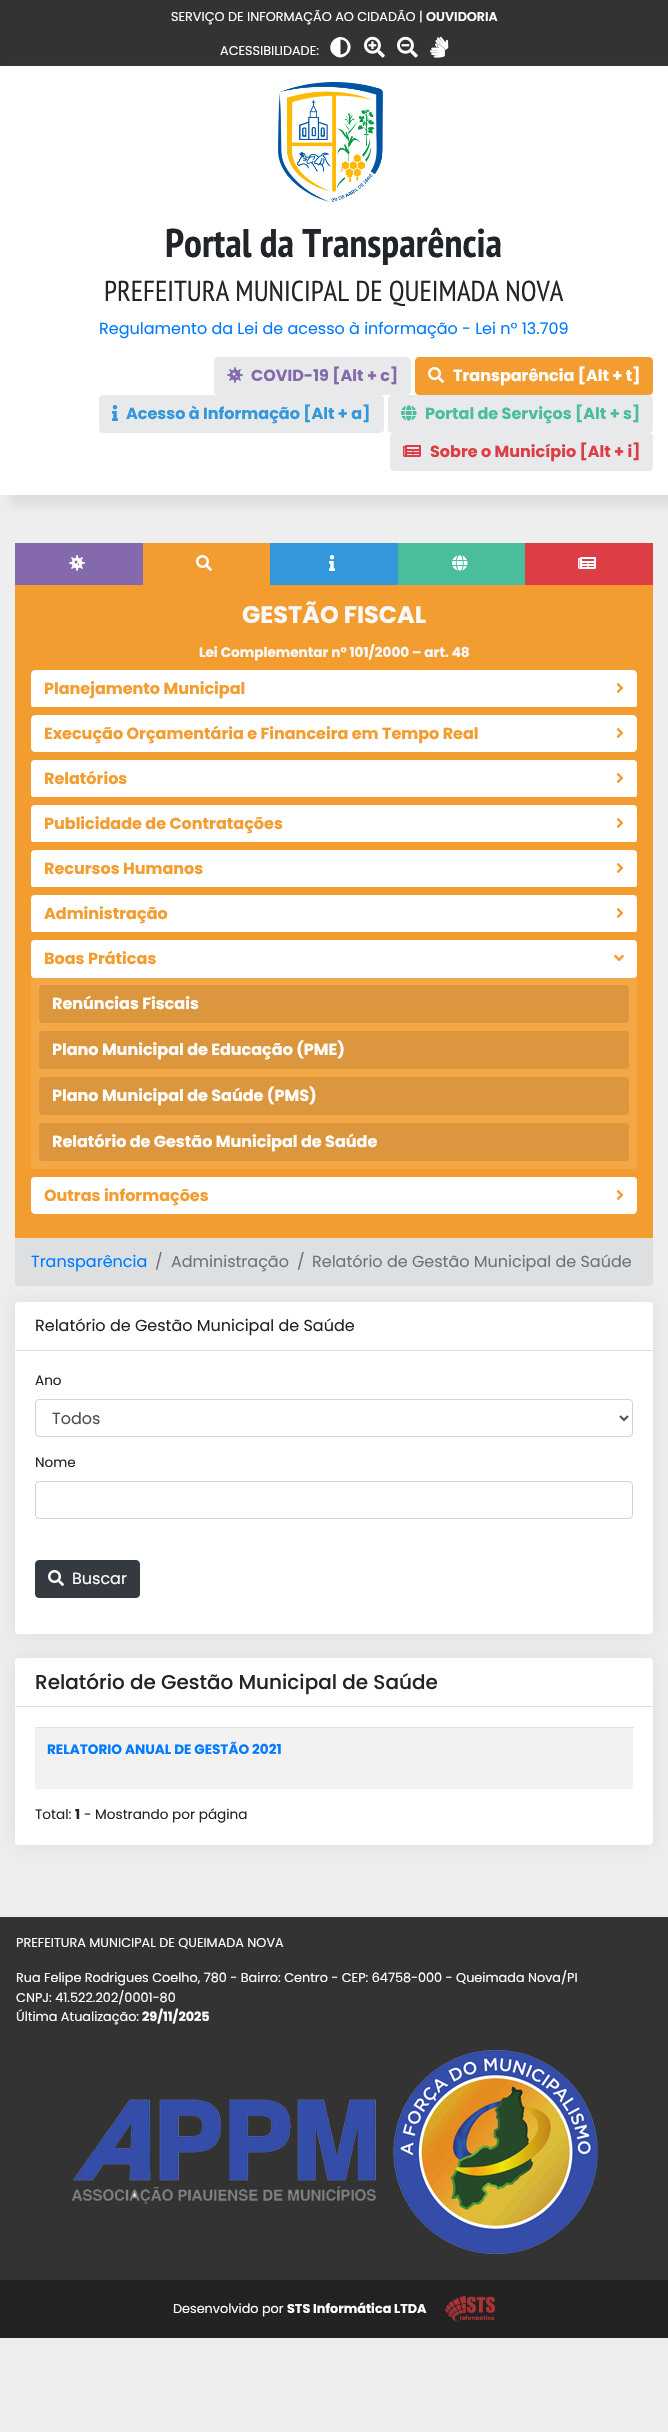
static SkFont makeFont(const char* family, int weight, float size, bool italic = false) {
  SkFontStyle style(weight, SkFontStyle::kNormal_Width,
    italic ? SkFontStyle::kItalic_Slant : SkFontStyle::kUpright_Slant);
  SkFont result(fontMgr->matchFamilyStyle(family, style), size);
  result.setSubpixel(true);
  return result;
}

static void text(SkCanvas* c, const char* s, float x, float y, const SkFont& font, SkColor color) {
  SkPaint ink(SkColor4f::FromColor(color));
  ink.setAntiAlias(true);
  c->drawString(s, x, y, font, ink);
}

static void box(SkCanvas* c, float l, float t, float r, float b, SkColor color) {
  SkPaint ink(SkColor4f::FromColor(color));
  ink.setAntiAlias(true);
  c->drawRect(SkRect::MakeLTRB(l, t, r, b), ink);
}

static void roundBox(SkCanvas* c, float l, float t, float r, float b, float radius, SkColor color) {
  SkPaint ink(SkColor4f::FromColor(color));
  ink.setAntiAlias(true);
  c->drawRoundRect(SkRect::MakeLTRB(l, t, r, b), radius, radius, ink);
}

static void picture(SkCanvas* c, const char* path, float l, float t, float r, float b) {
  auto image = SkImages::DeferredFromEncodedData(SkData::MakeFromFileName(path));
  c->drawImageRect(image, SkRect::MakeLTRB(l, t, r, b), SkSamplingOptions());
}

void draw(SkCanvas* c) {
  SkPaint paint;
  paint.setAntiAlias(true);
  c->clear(0xffeeeeee);
  box(c, 0, 0, 668, 66, 0xff333333);
  SkFont face1 = makeFont("Poppins", 400, 12.8f);
  text(c, "SERVIÇO DE INFORMAÇÃO AO CIDADÃO |", 171, 21, face1, 0xffffffff);
  SkFont face2 = makeFont("Poppins", 600, 12.8f);
  text(c, "OUVIDORIA", 426, 21, face2, 0xffffffff);
  text(c, "ACESSIBILIDADE:", 220, 55, face1, 0xffffffff);
  paint.setColor(0xffffffff);
  c->drawPath(SkPathBuilder().moveTo(333.5f, 54.5f).cubicTo(324, 45, 338, 30.5f, 347.5f, 40).cubicTo(357, 49.5f, 342.5f, 63.5f, 333.5f, 54.5f).close().moveTo(340.5f, 54.5f).cubicTo(350, 54.5f, 350, 39.5f, 340.5f, 39.5f).close().detach(), paint);
  picture(c, "img_01.png", 364, 36, 385, 58);
  picture(c, "img_02.png", 397, 36, 418, 58);
  picture(c, "img_03.png", 430, 36, 449, 58);
  paint.setColor(0xffdddddd);
  paint.setMaskFilter(SkMaskFilter::MakeBlur(kNormal_SkBlurStyle, 5));
  c->drawRect(SkRect::MakeLTRB(10, 76, 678, 505), paint);
  paint.setMaskFilter(nullptr);
  box(c, 0, 66, 668, 495, 0xffffffff);
  picture(c, "img_04.png", 278, 82, 383, 202);
  SkFont face3 = makeFont("PT Sans Narrow", 700, 40);
  text(c, "Portal da Transparência", 165, 257, face3, 0xff212529);
  SkFont face4 = makeFont("PT Sans Narrow", 400, 28.75f);
  text(c, "PREFEITURA MUNICIPAL DE QUEIMADA NOVA", 104, 301, face4, 0xff212529);
  SkFont face5 = makeFont("Poppins", 400, 16);
  text(c, "Regulamento da Lei de acesso à informação - Lei nº 13.709", 99, 334, face5, 0xff007bff);
  paint.setColor(0xffe8e9ea);
  c->drawRoundRect(SkRect::MakeLTRB(214.5f, 357.5f, 410.5f, 394.5f), 3.5f, 3.5f, paint);
  paint.setStyle(SkPaint::kStroke_Style);
  paint.setStrokeWidth(1);
  c->drawRoundRect(SkRect::MakeLTRB(214.5f, 357.5f, 410.5f, 394.5f), 3.5f, 3.5f, paint);
  picture(c, "img_05.png", 227, 367, 243, 383);
  SkFont face6 = makeFont("Poppins", 700, 16);
  text(c, "COVID-19 [Alt + c]", 251, 381, face6, 0xff8469ac);
  paint.setStyle(SkPaint::kFill_Style);
  paint.setColor(0xfff39d30);
  c->drawRoundRect(SkRect::MakeLTRB(415.5f, 357.5f, 652.5f, 394.5f), 3.5f, 3.5f, paint);
  paint.setStyle(SkPaint::kStroke_Style);
  c->drawRoundRect(SkRect::MakeLTRB(415.5f, 357.5f, 652.5f, 394.5f), 3.5f, 3.5f, paint);
  picture(c, "img_06.png", 428, 367, 444, 383);
  text(c, "Transparência [Alt + t]", 453, 381, face6, 0xffffffff);
  paint.setStyle(SkPaint::kFill_Style);
  paint.setColor(0xffe8e9ea);
  c->drawRoundRect(SkRect::MakeLTRB(99.5f, 395.5f, 383.5f, 432.5f), 3.5f, 3.5f, paint);
  paint.setStyle(SkPaint::kStroke_Style);
  c->drawRoundRect(SkRect::MakeLTRB(99.5f, 395.5f, 383.5f, 432.5f), 3.5f, 3.5f, paint);
  picture(c, "img_07.png", 112, 405, 118, 421);
  text(c, "Acesso à Informação [Alt + a]", 126, 419, face6, 0xff3398db);
  paint.setStyle(SkPaint::kFill_Style);
  c->drawRoundRect(SkRect::MakeLTRB(388.5f, 395.5f, 652.5f, 432.5f), 3.5f, 3.5f, paint);
  paint.setStyle(SkPaint::kStroke_Style);
  c->drawRoundRect(SkRect::MakeLTRB(388.5f, 395.5f, 652.5f, 432.5f), 3.5f, 3.5f, paint);
  picture(c, "img_08.png", 401, 405, 417, 421);
  text(c, "Portal de Serviços [Alt + s]", 425, 419, face6, 0xff4abd9c);
  paint.setStyle(SkPaint::kFill_Style);
  c->drawRoundRect(SkRect::MakeLTRB(390.5f, 433.5f, 652.5f, 470.5f), 3.5f, 3.5f, paint);
  paint.setStyle(SkPaint::kStroke_Style);
  c->drawRoundRect(SkRect::MakeLTRB(390.5f, 433.5f, 652.5f, 470.5f), 3.5f, 3.5f, paint);
  picture(c, "img_09.png", 403, 445, 421, 457);
  text(c, "Sobre o Município [Alt + i]", 430, 457, face6, 0xffdd3d45);
  box(c, 15, 543, 143, 585, 0xff8469ac);
  picture(c, "img_10.png", 69, 555, 85, 571);
  box(c, 143, 543, 270, 585, 0xfff39d30);
  picture(c, "img_06.png", 196, 555, 212, 571);
  box(c, 270, 543, 398, 585, 0xff3398db);
  picture(c, "img_11.png", 329, 555, 335, 571);
  box(c, 398, 543, 525, 585, 0xff4abd9c);
  picture(c, "img_12.png", 452, 555, 468, 571);
  box(c, 525, 543, 653, 585, 0xffdd3d45);
  picture(c, "img_13.png", 578, 557, 596, 569);
  box(c, 15, 585, 653, 1238, 0xfff39d30);
  SkFont face7 = makeFont("Poppins", 700, 24);
  text(c, "GESTÃO FISCAL", 242, 623, face7, 0xfff8f9fa);
  SkFont face8 = makeFont("Poppins", 700, 13.6f);
  text(c, "Lei Complementar nº 101/2000 – art. 48", 199, 657, face8, 0xfff8f9fa);
  c->save();
  c->clipPath(SkPathBuilder().moveTo(35, 670).lineTo(633, 670).cubicTo(635, 670, 637, 672, 637, 674).lineTo(637, 707).lineTo(31, 707).lineTo(31, 674).cubicTo(31, 672, 33, 670, 35, 670).close().detach(), true);
  roundBox(c, 31, 670, 637, 708, 4, 0xffffffff);
  c->restore();
  text(c, "Planejamento Municipal", 44, 694, face6, 0xfff39d30);
  picture(c, "img_14.png", 616, 683, 624, 693);
  c->save();
  c->clipPath(SkPathBuilder().moveTo(35, 715).lineTo(633, 715).cubicTo(635, 715, 637, 717, 637, 719).lineTo(637, 748).cubicTo(637, 750, 635, 752, 633, 752).lineTo(35, 752).cubicTo(33, 752, 31, 750, 31, 748).lineTo(31, 719).cubicTo(31, 717, 33, 715, 35, 715).close().detach(), true);
  roundBox(c, 31, 715, 637, 753, 4, 0xffffffff);
  c->restore();
  text(c, "Execução Orçamentária e Financeira em Tempo Real", 44, 739, face6, 0xfff39d30);
  picture(c, "img_14.png", 616, 728, 624, 738);
  c->save();
  c->clipRect(SkRect::MakeLTRB(31, 760, 637, 797));
  roundBox(c, 31, 760, 637, 798, 4, 0xffffffff);
  c->restore();
  text(c, "Relatórios", 44, 784, face6, 0xfff39d30);
  picture(c, "img_14.png", 616, 773, 624, 783);
  c->save();
  c->clipRect(SkRect::MakeLTRB(31, 805, 637, 842));
  roundBox(c, 31, 805, 637, 843, 4, 0xffffffff);
  c->restore();
  text(c, "Publicidade de Contratações", 44, 829, face6, 0xfff39d30);
  picture(c, "img_14.png", 616, 818, 624, 828);
  c->save();
  c->clipRect(SkRect::MakeLTRB(31, 850, 637, 887));
  roundBox(c, 31, 850, 637, 888, 4, 0xffffffff);
  c->restore();
  text(c, "Recursos Humanos", 44, 874, face6, 0xfff39d30);
  picture(c, "img_14.png", 616, 863, 624, 873);
  c->save();
  c->clipRect(SkRect::MakeLTRB(31, 895, 637, 932));
  roundBox(c, 31, 895, 637, 933, 4, 0xffffffff);
  c->restore();
  text(c, "Administração", 44, 919, face6, 0xfff39d30);
  picture(c, "img_14.png", 616, 908, 624, 918);
  roundBox(c, 31, 940, 637, 978, 4, 0xffffffff);
  text(c, "Boas Práticas", 44, 964, face6, 0xfff39d30);
  picture(c, "img_15.png", 614, 954, 624, 962);
  box(c, 31, 977, 637, 1023, 0x1affffff);
  roundBox(c, 39, 985, 629, 1023, 4, 0xffdc963e);
  text(c, "Renúncias Fiscais", 52, 1009, face6, 0xffffffff);
  box(c, 31, 1023, 637, 1169, 0xfff4a745);
  roundBox(c, 39, 1031, 629, 1069, 4, 0xffdc963e);
  text(c, "Plano Municipal de Educação (PME)", 52, 1055, face6, 0xffffffff);
  roundBox(c, 39, 1077, 629, 1115, 4, 0xffdc963e);
  text(c, "Plano Municipal de Saúde (PMS)", 52, 1101, face6, 0xffffffff);
  roundBox(c, 39, 1123, 629, 1161, 4, 0xffdc963e);
  text(c, "Relatório de Gestão Municipal de Saúde", 52, 1147, face6, 0xffffffff);
  c->save();
  c->clipPath(SkPathBuilder().moveTo(31, 1177).lineTo(637, 1177).lineTo(637, 1210).cubicTo(637, 1212, 635, 1214, 633, 1214).lineTo(35, 1214).cubicTo(33, 1214, 31, 1212, 31, 1210).close().detach(), true);
  roundBox(c, 31, 1177, 637, 1215, 4, 0xffffffff);
  c->restore();
  text(c, "Outras informações", 44, 1201, face6, 0xfff39d30);
  picture(c, "img_14.png", 616, 1190, 624, 1200);
  roundBox(c, 15, 1238, 653, 1286, 4, 0xffdddfe0);
  text(c, "Transparência", 31, 1267, face5, 0xff007bff);
  text(c, "/", 155, 1267, face5, 0xff6c757d);
  text(c, "Administração", 171, 1267, face5, 0xff6c757d);
  text(c, "/", 297, 1267, face5, 0xff6c757d);
  text(c, "Relatório de Gestão Municipal de Saúde", 312, 1267, face5, 0xff6c757d);
  paint.setStyle(SkPaint::kFill_Style);
  paint.setColor(0xffdddddd);
  paint.setMaskFilter(SkMaskFilter::MakeBlur(kNormal_SkBlurStyle, 10));
  c->drawRoundRect(SkRect::MakeLTRB(15, 1302, 653, 1634), 4, 4, paint);
  paint.setMaskFilter(nullptr);
  roundBox(c, 15, 1302, 653, 1634, 4, 0xffffffff);
  paint.setColor(0xffffffff);
  c->drawPath(SkPathBuilder().moveTo(18, 1302).lineTo(650, 1302).cubicTo(651.5f, 1302, 653, 1303.5f, 653, 1305).lineTo(653, 1351).lineTo(15, 1351).lineTo(15, 1305).cubicTo(15, 1303.5f, 16.5f, 1302, 18, 1302).close().detach(), paint);
  box(c, 15, 1350, 653, 1351, 0xffdfdfdf);
  text(c, "Relatório de Gestão Municipal de Saúde", 35, 1331, face5, 0xff212529);
  SkFont face9 = makeFont("Poppins", 400, 13.6f);
  text(c, "Ano", 35, 1385, face9, 0xff212529);
  paint.setStyle(SkPaint::kStroke_Style);
  paint.setColor(0xffced4da);
  c->drawRoundRect(SkRect::MakeLTRB(35.5f, 1399.5f, 632.5f, 1436.5f), 3.5f, 3.5f, paint);
  paint.setStrokeWidth(2);
  paint.setColor(0xff495057);
  c->drawPath(SkPathBuilder().moveTo(620, 1416).lineTo(624, 1420).lineTo(628, 1416).detach(), paint);
  text(c, "Todos", 52, 1424, face5, 0xff495057);
  text(c, "Nome", 35, 1467, face9, 0xff212529);
  paint.setStrokeWidth(1);
  paint.setColor(0xffced4da);
  c->drawRoundRect(SkRect::MakeLTRB(35.5f, 1481.5f, 632.5f, 1518.5f), 3.5f, 3.5f, paint);
  paint.setStyle(SkPaint::kFill_Style);
  paint.setColor(0xff343a40);
  c->drawRoundRect(SkRect::MakeLTRB(35.5f, 1560.5f, 139.5f, 1597.5f), 3.5f, 3.5f, paint);
  paint.setStyle(SkPaint::kStroke_Style);
  c->drawRoundRect(SkRect::MakeLTRB(35.5f, 1560.5f, 139.5f, 1597.5f), 3.5f, 3.5f, paint);
  picture(c, "img_16.png", 48, 1570, 64, 1586);
  text(c, "Buscar", 72, 1584, face5, 0xffffffff);
  paint.setStyle(SkPaint::kFill_Style);
  paint.setColor(0xffdddddd);
  paint.setMaskFilter(SkMaskFilter::MakeBlur(kNormal_SkBlurStyle, 10));
  c->drawRoundRect(SkRect::MakeLTRB(15, 1658, 653, 1845), 4, 4, paint);
  paint.setMaskFilter(nullptr);
  roundBox(c, 15, 1658, 653, 1845, 4, 0xffffffff);
  paint.setColor(0xffffffff);
  c->drawPath(SkPathBuilder().moveTo(18, 1658).lineTo(650, 1658).cubicTo(651.5f, 1658, 653, 1659.5f, 653, 1661).lineTo(653, 1707).lineTo(15, 1707).lineTo(15, 1661).cubicTo(15, 1659.5f, 16.5f, 1658, 18, 1658).close().detach(), paint);
  box(c, 15, 1706, 653, 1707, 0xffdfdfdf);
  SkFont face10 = makeFont("Poppins", 500, 20);
  text(c, "Relatório de Gestão Municipal de Saúde", 35, 1689, face10, 0xff212529);
  box(c, 35, 1728, 633, 1789, 0xfff2f2f2);
  box(c, 35, 1727, 634, 1728, 0xffdee2e6);
  text(c, "RELATORIO ANUAL DE GESTÃO 2021", 47, 1754, face8, 0xff007bff);
  text(c, "Total:", 35, 1819, face9, 0xff212529);
  text(c, "1", 75, 1819, face8, 0xff212529);
  text(c, "- Mostrando por página", 84, 1819, face9, 0xff212529);
  box(c, 0, 1917, 668, 2280, 0xff333333);
  text(c, "PREFEITURA MUNICIPAL DE QUEIMADA NOVA", 16, 1947, face1, 0xffffffff);
  text(c, "Rua Felipe Rodrigues Coelho, 780 - Bairro: Centro - CEP: 64758-000 - Queimada Nova/PI", 16, 1982, face1, 0xffffffff);
  text(c, "CNPJ: 41.522.202/0001-80", 16, 2002, face1, 0xffffffff);
  text(c, "Última Atualização:", 16, 2021, face1, 0xffffffff);
  SkFont face11 = makeFont("Poppins", 700, 12.8f);
  text(c, "29/11/2025", 142, 2021, face11, 0xffffffff);
  picture(c, "img_17.png", 72, 2050, 598, 2254);
  box(c, 0, 2280, 668, 2338, 0xff222222);
  text(c, "Desenvolvido por", 173, 2313, face1, 0xffffffff);
  text(c, "STS Informática LTDA", 287, 2313, face11, 0xffffffff);
  picture(c, "img_18.png", 445, 2296, 495, 2322);
}
